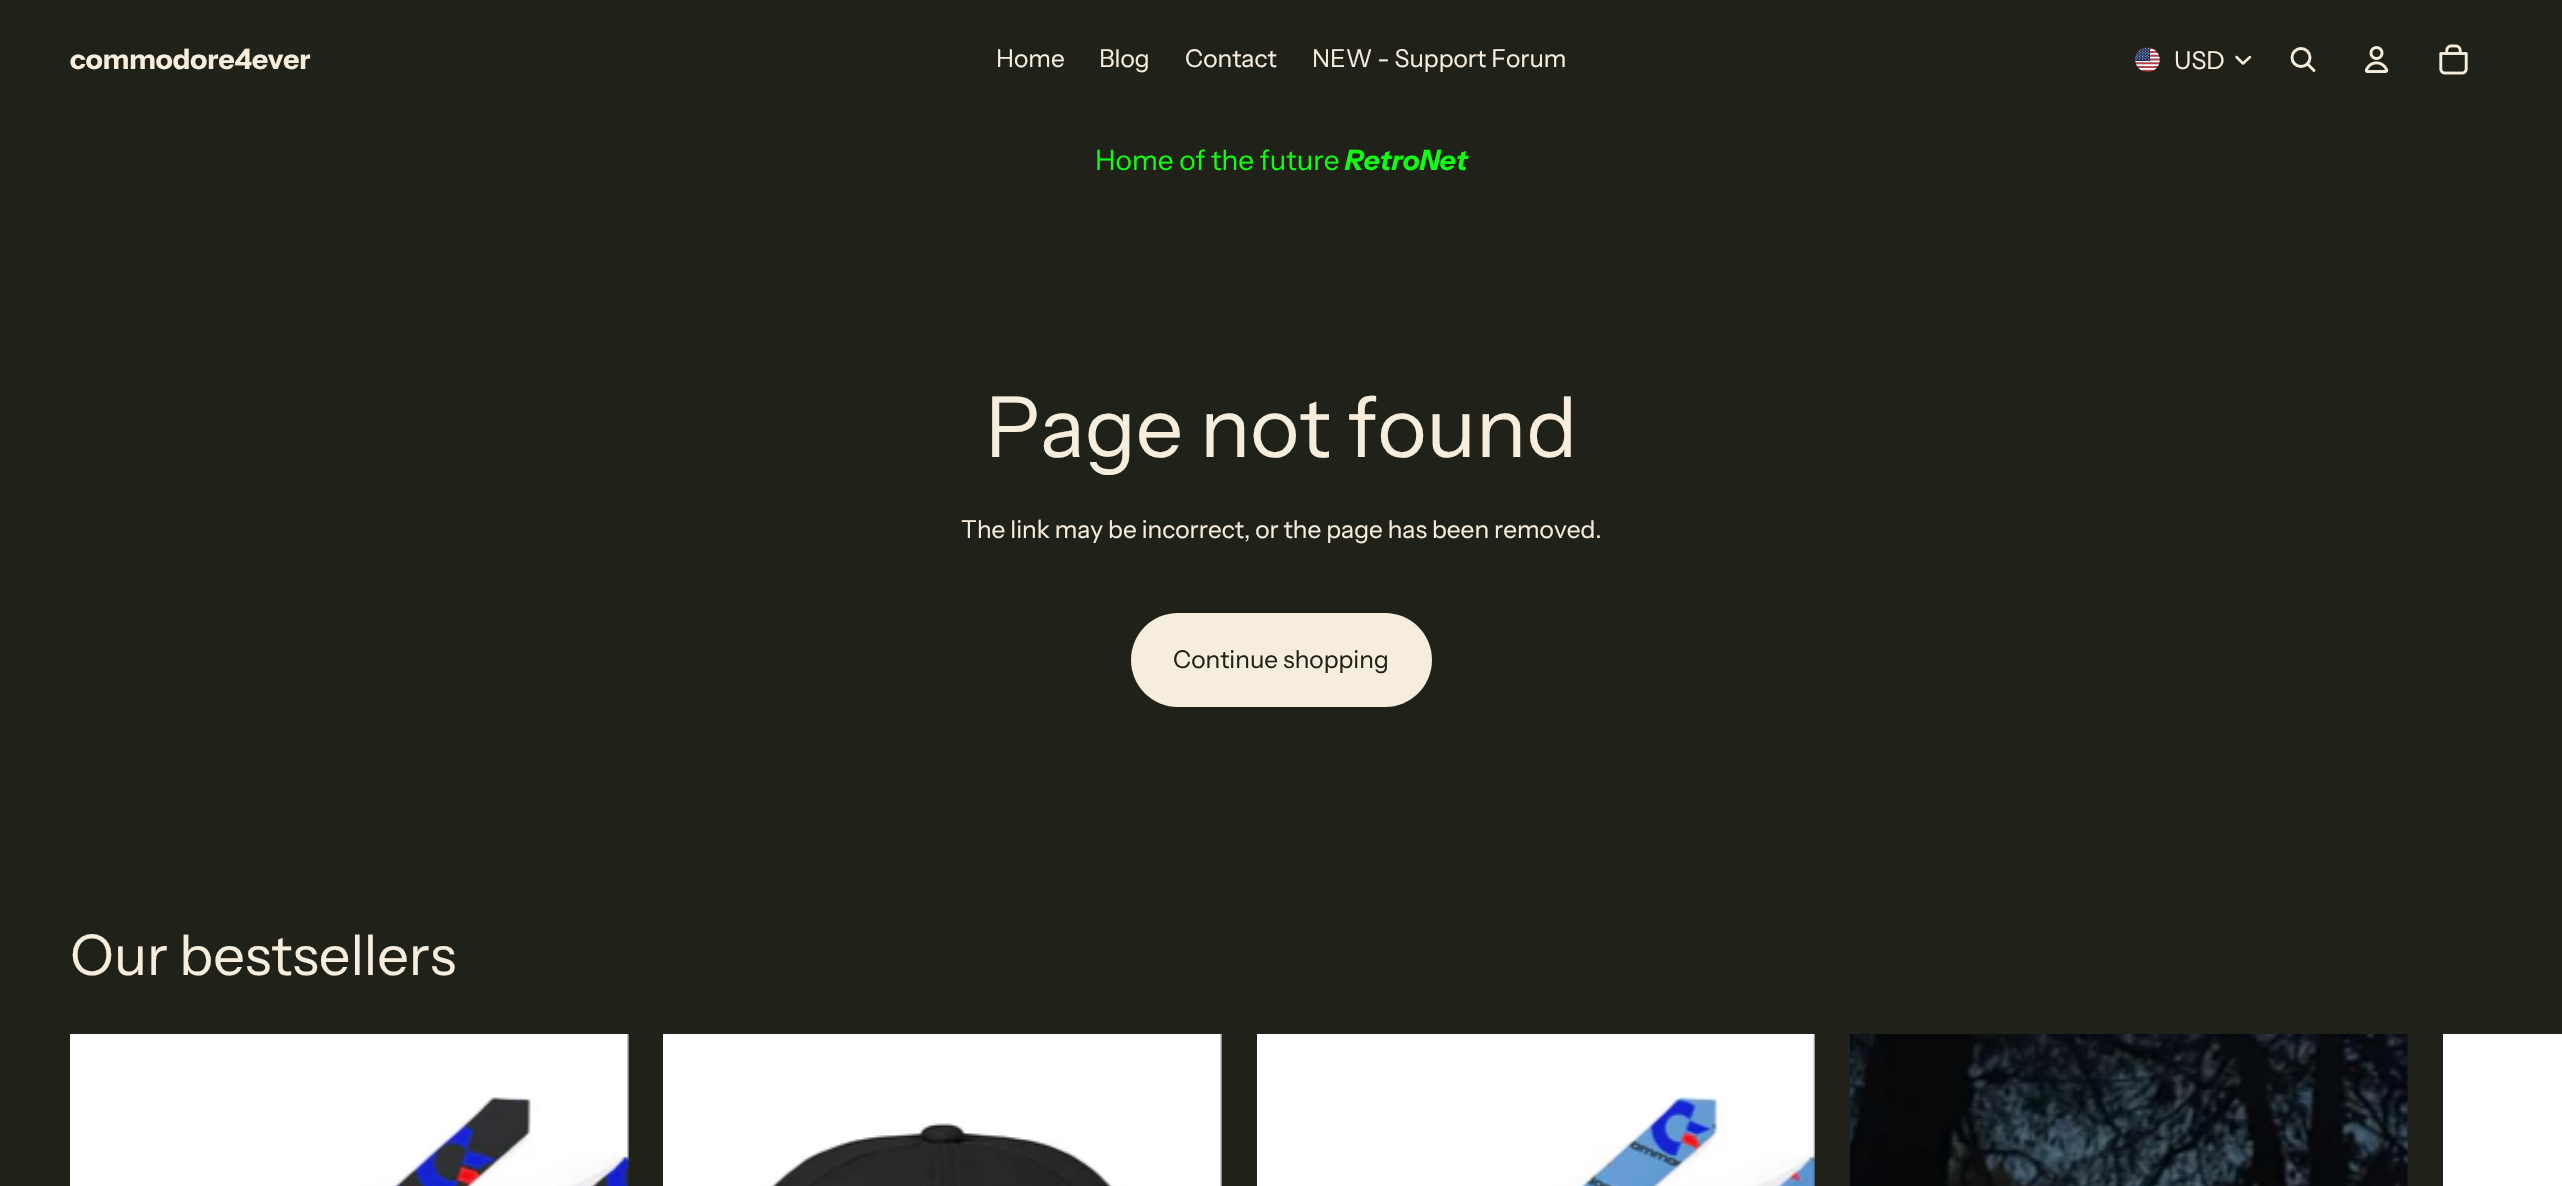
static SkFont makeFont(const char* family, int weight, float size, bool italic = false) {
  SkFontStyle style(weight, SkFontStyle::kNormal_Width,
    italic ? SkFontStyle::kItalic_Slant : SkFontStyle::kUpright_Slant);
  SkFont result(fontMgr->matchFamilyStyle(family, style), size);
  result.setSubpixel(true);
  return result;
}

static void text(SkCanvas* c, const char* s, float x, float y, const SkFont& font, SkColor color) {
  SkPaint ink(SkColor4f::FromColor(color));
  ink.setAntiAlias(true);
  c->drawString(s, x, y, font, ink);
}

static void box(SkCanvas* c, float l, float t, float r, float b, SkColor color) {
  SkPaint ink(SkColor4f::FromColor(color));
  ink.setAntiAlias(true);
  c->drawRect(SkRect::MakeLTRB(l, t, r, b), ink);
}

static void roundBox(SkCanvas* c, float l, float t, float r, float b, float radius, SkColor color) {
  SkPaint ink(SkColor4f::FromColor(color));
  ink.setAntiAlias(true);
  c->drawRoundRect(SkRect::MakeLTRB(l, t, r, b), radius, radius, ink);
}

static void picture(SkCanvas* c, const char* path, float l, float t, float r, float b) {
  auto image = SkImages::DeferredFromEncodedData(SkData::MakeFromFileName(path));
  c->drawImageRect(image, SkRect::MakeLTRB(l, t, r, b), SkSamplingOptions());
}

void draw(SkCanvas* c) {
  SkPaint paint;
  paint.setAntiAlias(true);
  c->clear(0xff202219);
  SkFont face1 = makeFont("Instrument Sans", 700, 28);
  text(c, "commodore4ever", 70, 69, face1, 0xfff6eddd);
  SkFont face2 = makeFont("Instrument Sans", 400, 24.5f);
  text(c, "Home", 996, 67, face2, 0xfff6eddd);
  text(c, "Blog", 1099, 67, face2, 0xfff6eddd);
  text(c, "Contact", 1185, 67, face2, 0xfff6eddd);
  text(c, "NEW - Support Forum", 1312, 67, face2, 0xfff6eddd);
  picture(c, "img_01.png", 2135, 47, 2160, 72);
  text(c, "USD", 2174, 69, face2, 0xfff6eddd);
  paint.setStyle(SkPaint::kStroke_Style);
  paint.setStrokeWidth(2.5f);
  paint.setStrokeCap(SkPaint::kRound_Cap);
  paint.setStrokeJoin(SkPaint::kRound_Join);
  paint.setColor(0xfff6eddd);
  c->drawPath(SkPathBuilder().moveTo(2250, 57).lineTo(2243, 63.5f).lineTo(2236.5f, 57).detach(), paint);
  paint.setStrokeWidth(2.9f);
  paint.setStrokeCap(SkPaint::kButt_Cap);
  paint.setStrokeJoin(SkPaint::kMiter_Join);
  c->drawCircle(2301, 57.5f, 9, paint);
  paint.setStrokeCap(SkPaint::kRound_Cap);
  paint.setStrokeJoin(SkPaint::kRound_Join);
  c->drawPath(SkPathBuilder().moveTo(2308, 64.5f).lineTo(2314, 70.5f).detach(), paint);
  picture(c, "img_02.png", 2364, 46, 2389, 73);
  picture(c, "img_03.png", 2439, 44, 2468, 75);
  SkFont face3 = makeFont("Instrument Sans", 400, 28);
  text(c, "Home of the future", 1095, 170, face3, 0xff11fc13);
  SkFont face4 = makeFont("Instrument Sans", 700, 28, true);
  text(c, "RetroNet", 1345, 170, face4, 0xff11fc13);
  SkFont face5 = makeFont("Instrument Sans", 400, 84);
  text(c, "Page not found", 985, 457, face5, 0xfff6eddd);
  text(c, "The link may be incorrect, or the page has been removed.", 961, 538, face2, 0xfff6eddd);
  roundBox(c, 1131, 613, 1432, 707, 47, 0xfff6eddd);
  text(c, "Continue shopping", 1173, 668, face2, 0xff202219);
  SkFont face6 = makeFont("Instrument Sans", 400, 56);
  text(c, "Our bestsellers", 70, 975, face6, 0xfff6eddd);
  picture(c, "img_04.png", 70, 1034, 629, 1186);
  picture(c, "img_05.png", 663, 1034, 1222, 1186);
  picture(c, "img_06.png", 1257, 1034, 1815, 1186);
  picture(c, "img_07.png", 1850, 1034, 2408, 1186);
  box(c, 2443, 1034, 2562, 1186, 0xffffffff);
}
